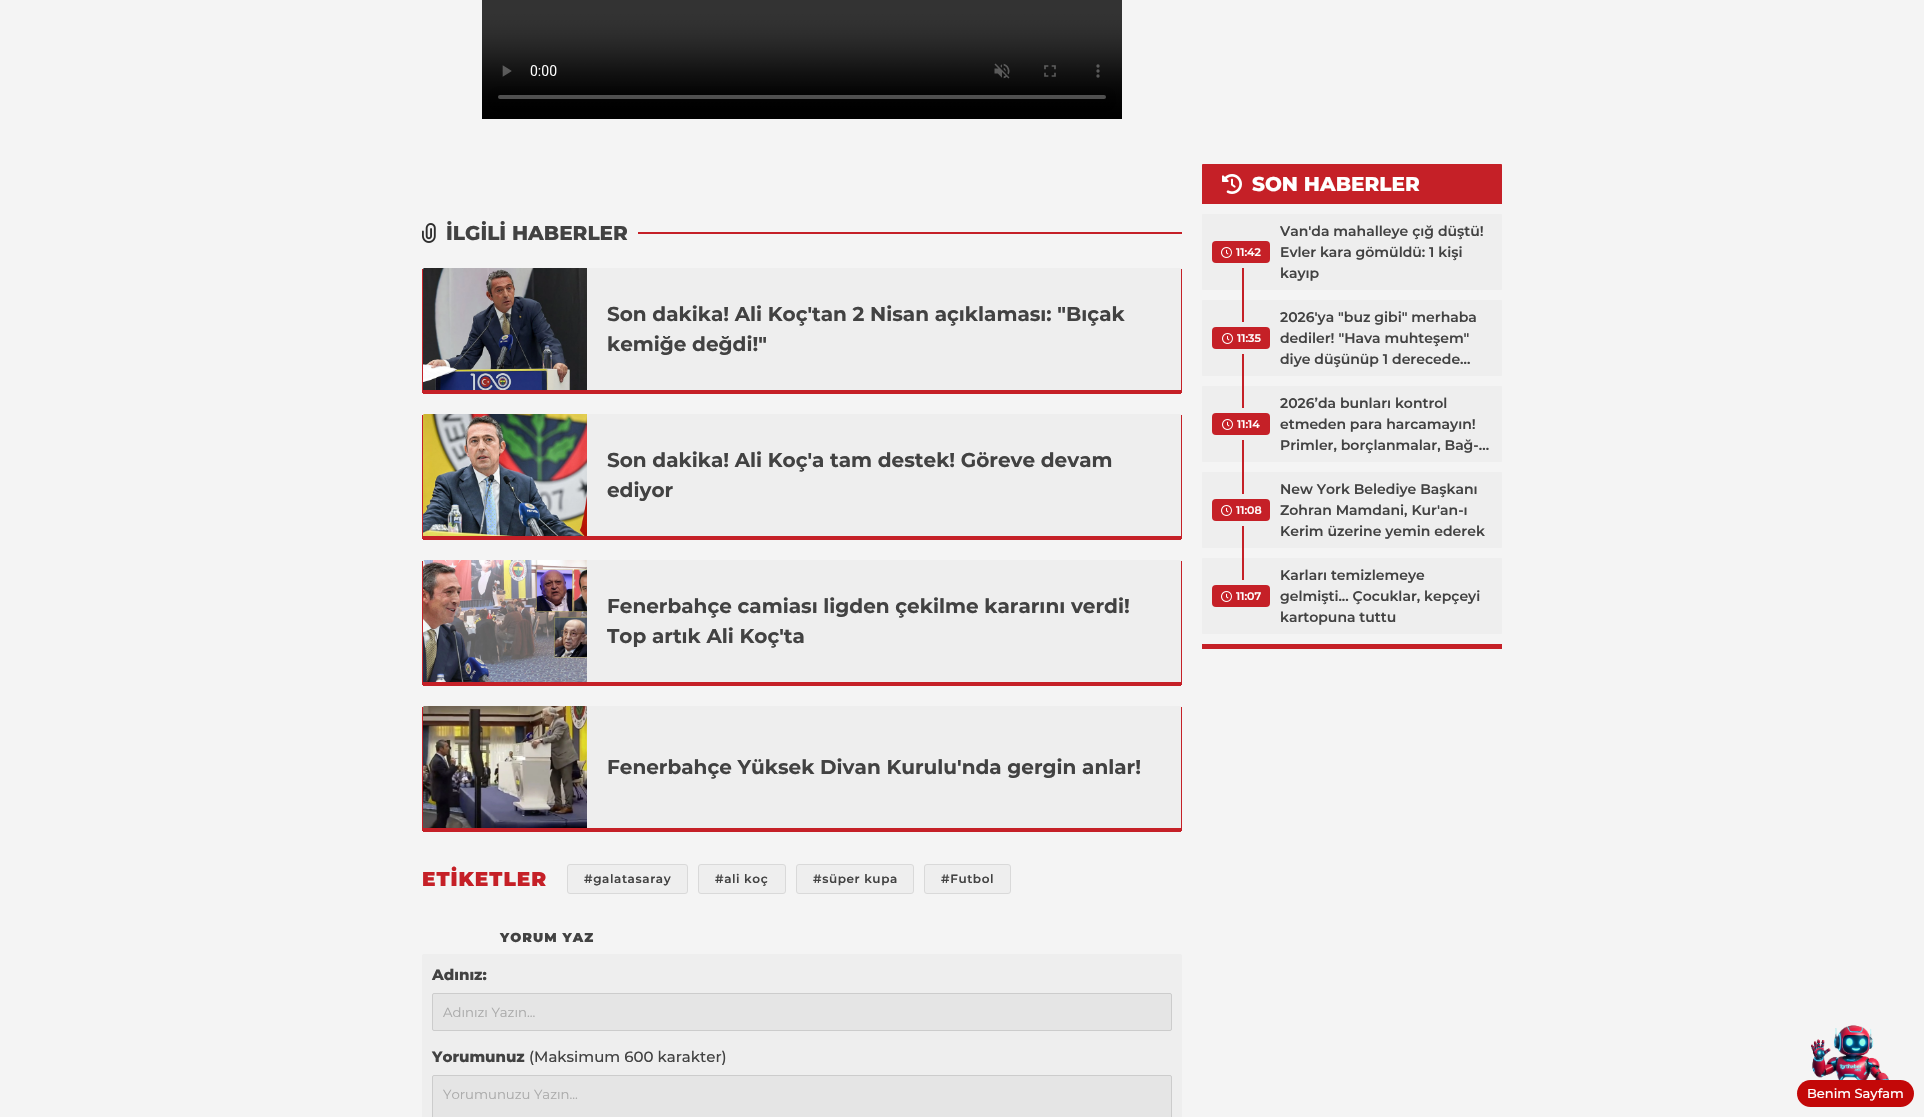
static SkFont makeFont(const char* family, int weight, float size, bool italic = false) {
  SkFontStyle style(weight, SkFontStyle::kNormal_Width,
    italic ? SkFontStyle::kItalic_Slant : SkFontStyle::kUpright_Slant);
  SkFont result(fontMgr->matchFamilyStyle(family, style), size);
  result.setSubpixel(true);
  return result;
}

static void text(SkCanvas* c, const char* s, float x, float y, const SkFont& font, SkColor color) {
  SkPaint ink(SkColor4f::FromColor(color));
  ink.setAntiAlias(true);
  c->drawString(s, x, y, font, ink);
}

static void spacedText(SkCanvas* c, const char* s, float x, float y, const SkFont& font, const SkPaint& ink, float letter, float word) {
  std::vector<SkGlyphID> glyphs(font.countText(s, strlen(s), SkTextEncoding::kUTF8));
  std::vector<float> xs(glyphs.size());
  font.textToGlyphs(s, strlen(s), SkTextEncoding::kUTF8, glyphs);
  font.getXPos(glyphs, xs, x);
  float extra = 0;
  for (size_t i = 0; i < glyphs.size(); i++) {
    xs[i] += extra;
    extra += letter + word * (glyphs[i] == font.unicharToGlyph(' '));
  }
  c->drawTextBlob(SkTextBlob::MakeFromPosHGlyphs(glyphs, xs, y, font), 0, 0, ink);
}

static void box(SkCanvas* c, float l, float t, float r, float b, SkColor color) {
  SkPaint ink(SkColor4f::FromColor(color));
  ink.setAntiAlias(true);
  c->drawRect(SkRect::MakeLTRB(l, t, r, b), ink);
}

static void roundBox(SkCanvas* c, float l, float t, float r, float b, float radius, SkColor color) {
  SkPaint ink(SkColor4f::FromColor(color));
  ink.setAntiAlias(true);
  c->drawRoundRect(SkRect::MakeLTRB(l, t, r, b), radius, radius, ink);
}

static void picture(SkCanvas* c, const char* path, float l, float t, float r, float b) {
  auto image = SkImages::DeferredFromEncodedData(SkData::MakeFromFileName(path));
  c->drawImageRect(image, SkRect::MakeLTRB(l, t, r, b), SkSamplingOptions());
}

void draw(SkCanvas* c) {
  SkPaint paint;
  paint.setAntiAlias(true);
  c->clear(0xfff4f4f4);
  picture(c, "img_01.png", 482, 0, 1122, 119);
  picture(c, "img_02.png", 422, 223, 436, 243);
  SkFont face1 = makeFont("Montserrat", 800, 20);
  text(c, "İLGİLİ HABERLER", 446, 240, face1, 0xff424242);
  box(c, 638, 232, 1182, 234, 0xffc52027);
  roundBox(c, 422, 268, 1182, 394, 2, 0xffeeeeee);
  box(c, 1181, 269, 1182, 393, 0xffc52027);
  box(c, 423, 390, 1181, 394, 0xffc52027);
  box(c, 422, 269, 423, 393, 0xffc52027);
  picture(c, "img_03.png", 423, 268, 587, 390);
  SkFont face2 = makeFont("Montserrat", 700, 20);
  text(c, "Son dakika! Ali Koç'tan 2 Nisan açıklaması: \"Bıçak", 607, 321, face2, 0xff424242);
  text(c, "kemiğe değdi!\"", 607, 351, face2, 0xff424242);
  roundBox(c, 422, 414, 1182, 540, 2, 0xffeeeeee);
  box(c, 1181, 415, 1182, 539, 0xffc52027);
  box(c, 423, 536, 1181, 540, 0xffc52027);
  box(c, 422, 415, 423, 539, 0xffc52027);
  picture(c, "img_04.png", 423, 414, 587, 536);
  text(c, "Son dakika! Ali Koç'a tam destek! Göreve devam", 607, 467, face2, 0xff424242);
  text(c, "ediyor", 607, 497, face2, 0xff424242);
  roundBox(c, 422, 560, 1182, 686, 2, 0xffeeeeee);
  box(c, 1181, 561, 1182, 685, 0xffc52027);
  box(c, 423, 682, 1181, 686, 0xffc52027);
  box(c, 422, 561, 423, 685, 0xffc52027);
  picture(c, "img_05.png", 423, 560, 587, 682);
  text(c, "Fenerbahçe camiası ligden çekilme kararını verdi!", 607, 613, face2, 0xff424242);
  text(c, "Top artık Ali Koç'ta", 607, 643, face2, 0xff424242);
  roundBox(c, 422, 706, 1182, 832, 2, 0xffeeeeee);
  box(c, 1181, 707, 1182, 831, 0xffc52027);
  box(c, 423, 828, 1181, 832, 0xffc52027);
  box(c, 422, 707, 423, 831, 0xffc52027);
  picture(c, "img_06.png", 423, 706, 587, 828);
  text(c, "Fenerbahçe Yüksek Divan Kurulu'nda gergin anlar!", 607, 774, face2, 0xff424242);
  SkFont face3 = makeFont("Montserrat", 900, 20);
  paint.setColor(0xffc52027);
  spacedText(c, "ETİKETLER", 422, 886, face3, paint, 1, 0);
  paint.setColor(0xffeeeeee);
  c->drawRoundRect(SkRect::MakeLTRB(567.5f, 864.5f, 687.5f, 893.5f), 2.5f, 2.5f, paint);
  paint.setStyle(SkPaint::kStroke_Style);
  paint.setStrokeWidth(1);
  paint.setColor(0xffd9d9d9);
  c->drawRoundRect(SkRect::MakeLTRB(567.5f, 864.5f, 687.5f, 893.5f), 2.5f, 2.5f, paint);
  SkFont face4 = makeFont("Montserrat", 600, 12);
  paint.setStyle(SkPaint::kFill_Style);
  paint.setColor(0xff424242);
  spacedText(c, "#galatasaray", 584, 883, face4, paint, 0.6f, 0);
  paint.setColor(0xffeeeeee);
  c->drawRoundRect(SkRect::MakeLTRB(698.5f, 864.5f, 785.5f, 893.5f), 2.5f, 2.5f, paint);
  paint.setStyle(SkPaint::kStroke_Style);
  paint.setColor(0xffd9d9d9);
  c->drawRoundRect(SkRect::MakeLTRB(698.5f, 864.5f, 785.5f, 893.5f), 2.5f, 2.5f, paint);
  paint.setStyle(SkPaint::kFill_Style);
  paint.setColor(0xff424242);
  spacedText(c, "#ali koç", 715, 883, face4, paint, 0.6f, 0);
  paint.setColor(0xffeeeeee);
  c->drawRoundRect(SkRect::MakeLTRB(796.5f, 864.5f, 913.5f, 893.5f), 2.5f, 2.5f, paint);
  paint.setStyle(SkPaint::kStroke_Style);
  paint.setColor(0xffd9d9d9);
  c->drawRoundRect(SkRect::MakeLTRB(796.5f, 864.5f, 913.5f, 893.5f), 2.5f, 2.5f, paint);
  paint.setStyle(SkPaint::kFill_Style);
  paint.setColor(0xff424242);
  spacedText(c, "#süper kupa", 813, 883, face4, paint, 0.6f, 0);
  paint.setColor(0xffeeeeee);
  c->drawRoundRect(SkRect::MakeLTRB(924.5f, 864.5f, 1010.5f, 893.5f), 2.5f, 2.5f, paint);
  paint.setStyle(SkPaint::kStroke_Style);
  paint.setColor(0xffd9d9d9);
  c->drawRoundRect(SkRect::MakeLTRB(924.5f, 864.5f, 1010.5f, 893.5f), 2.5f, 2.5f, paint);
  paint.setStyle(SkPaint::kFill_Style);
  paint.setColor(0xff424242);
  spacedText(c, "#Futbol", 941, 883, face4, paint, 0.6f, 0);
  SkFont face5 = makeFont("Montserrat", 900, 13);
  spacedText(c, "YORUM YAZ", 500, 942, face5, paint, 1, 0);
  roundBox(c, 422, 954, 1182, 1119, 2, 0xffeeeeee);
  SkFont face6 = makeFont("Montserrat", 800, 15);
  text(c, "Adınız:", 432, 980, face6, 0xff424242);
  paint.setColor(0xffe5e5e5);
  c->drawRoundRect(SkRect::MakeLTRB(432.5f, 993.5f, 1171.5f, 1030.5f), 1.5f, 1.5f, paint);
  paint.setStyle(SkPaint::kStroke_Style);
  paint.setColor(0xffcccccc);
  c->drawRoundRect(SkRect::MakeLTRB(432.5f, 993.5f, 1171.5f, 1030.5f), 1.5f, 1.5f, paint);
  SkFont face7 = makeFont("Montserrat", 400, 13.25f);
  text(c, "Adınızı Yazın...", 443, 1017, face7, 0xffaaaaaa);
  text(c, "Yorumunuz", 432, 1062, face6, 0xff424242);
  SkFont face8 = makeFont("Montserrat", 500, 15);
  text(c, "(Maksimum 600 karakter)", 529, 1062, face8, 0xff424242);
  paint.setStyle(SkPaint::kFill_Style);
  paint.setColor(0xffe5e5e5);
  c->drawRoundRect(SkRect::MakeLTRB(432.5f, 1075.5f, 1171.5f, 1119.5f), 1.5f, 1.5f, paint);
  paint.setStyle(SkPaint::kStroke_Style);
  paint.setColor(0xffcccccc);
  c->drawRoundRect(SkRect::MakeLTRB(432.5f, 1075.5f, 1171.5f, 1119.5f), 1.5f, 1.5f, paint);
  text(c, "Yorumunuzu Yazın...", 443, 1099, face7, 0xffaaaaaa);
  paint.setStyle(SkPaint::kFill_Style);
  paint.setColor(0xffc52027);
  c->drawPath(SkPathBuilder().moveTo(1203, 164).lineTo(1501, 164).cubicTo(1501.5f, 164, 1502, 164.5f, 1502, 165).lineTo(1502, 204).lineTo(1202, 204).lineTo(1202, 165).cubicTo(1202, 164.5f, 1202.5f, 164, 1203, 164).close().detach(), paint);
  picture(c, "img_07.png", 1222, 174, 1242, 194);
  text(c, "SON HABERLER", 1252, 191, face1, 0xffffffff);
  roundBox(c, 1202, 214, 1502, 290, 1, 0xffeeeeee);
  roundBox(c, 1212, 241, 1270, 263, 4, 0xffc52027);
  picture(c, "img_08.png", 1221, 247, 1232, 258);
  SkFont face9 = makeFont("Montserrat", 600, 11);
  text(c, "11:42", 1236, 256, face9, 0xffffffff);
  SkFont face10 = makeFont("Montserrat", 600, 14);
  text(c, "Van'da mahalleye çığ düştü!", 1280, 236, face10, 0xff424242);
  text(c, "Evler kara gömüldü: 1 kişi", 1280, 257, face10, 0xff424242);
  text(c, "kayıp", 1280, 278, face10, 0xff424242);
  roundBox(c, 1202, 300, 1502, 376, 1, 0xffeeeeee);
  box(c, 1242, 268, 1244, 322, 0xffc52027);
  roundBox(c, 1212, 327, 1270, 349, 4, 0xffc52027);
  picture(c, "img_08.png", 1222, 333, 1233, 344);
  text(c, "11:35", 1237, 342, face9, 0xffffffff);
  text(c, "2026'ya \"buz gibi\" merhaba", 1280, 322, face10, 0xff424242);
  text(c, "dediler! \"Hava muhteşem\"", 1280, 343, face10, 0xff424242);
  text(c, "diye düşünüp 1 derecede…", 1280, 364, face10, 0xff424242);
  roundBox(c, 1202, 386, 1502, 462, 1, 0xffeeeeee);
  box(c, 1242, 354, 1244, 408, 0xffc52027);
  roundBox(c, 1212, 413, 1270, 435, 4, 0xffc52027);
  picture(c, "img_08.png", 1222, 419, 1233, 430);
  text(c, "11:14", 1237, 428, face9, 0xffffffff);
  text(c, "2026’da bunları kontrol", 1280, 408, face10, 0xff424242);
  text(c, "etmeden para harcamayın!", 1280, 429, face10, 0xff424242);
  text(c, "Primler, borçlanmalar, Bağ-…", 1280, 450, face10, 0xff424242);
  roundBox(c, 1202, 472, 1502, 548, 1, 0xffeeeeee);
  box(c, 1242, 440, 1244, 494, 0xffc52027);
  roundBox(c, 1212, 499, 1270, 521, 4, 0xffc52027);
  picture(c, "img_08.png", 1221, 505, 1232, 516);
  text(c, "11:08", 1236, 514, face9, 0xffffffff);
  text(c, "New York Belediye Başkanı", 1280, 494, face10, 0xff424242);
  text(c, "Zohran Mamdani, Kur'an-ı", 1280, 515, face10, 0xff424242);
  text(c, "Kerim üzerine yemin ederek", 1280, 536, face10, 0xff424242);
  roundBox(c, 1202, 558, 1502, 634, 1, 0xffeeeeee);
  box(c, 1242, 526, 1244, 580, 0xffc52027);
  roundBox(c, 1212, 585, 1270, 607, 4, 0xffc52027);
  picture(c, "img_08.png", 1221, 591, 1232, 602);
  text(c, "11:07", 1236, 600, face9, 0xffffffff);
  text(c, "Karları temizlemeye", 1280, 580, face10, 0xff424242);
  text(c, "gelmişti... Çocuklar, kepçeyi", 1280, 601, face10, 0xff424242);
  text(c, "kartopuna tuttu", 1280, 622, face10, 0xff424242);
  box(c, 1202, 644, 1502, 649, 0xffc52027);
  picture(c, "img_09.png", 1811, 1025, 1889, 1080);
  roundBox(c, 1797, 1080, 1914, 1107, 13.5f, 0xffc30808);
  SkFont face11 = makeFont("Montserrat", 500, 13);
  text(c, "Benim Sayfam", 1807, 1098, face11, 0xffffffff);
}
